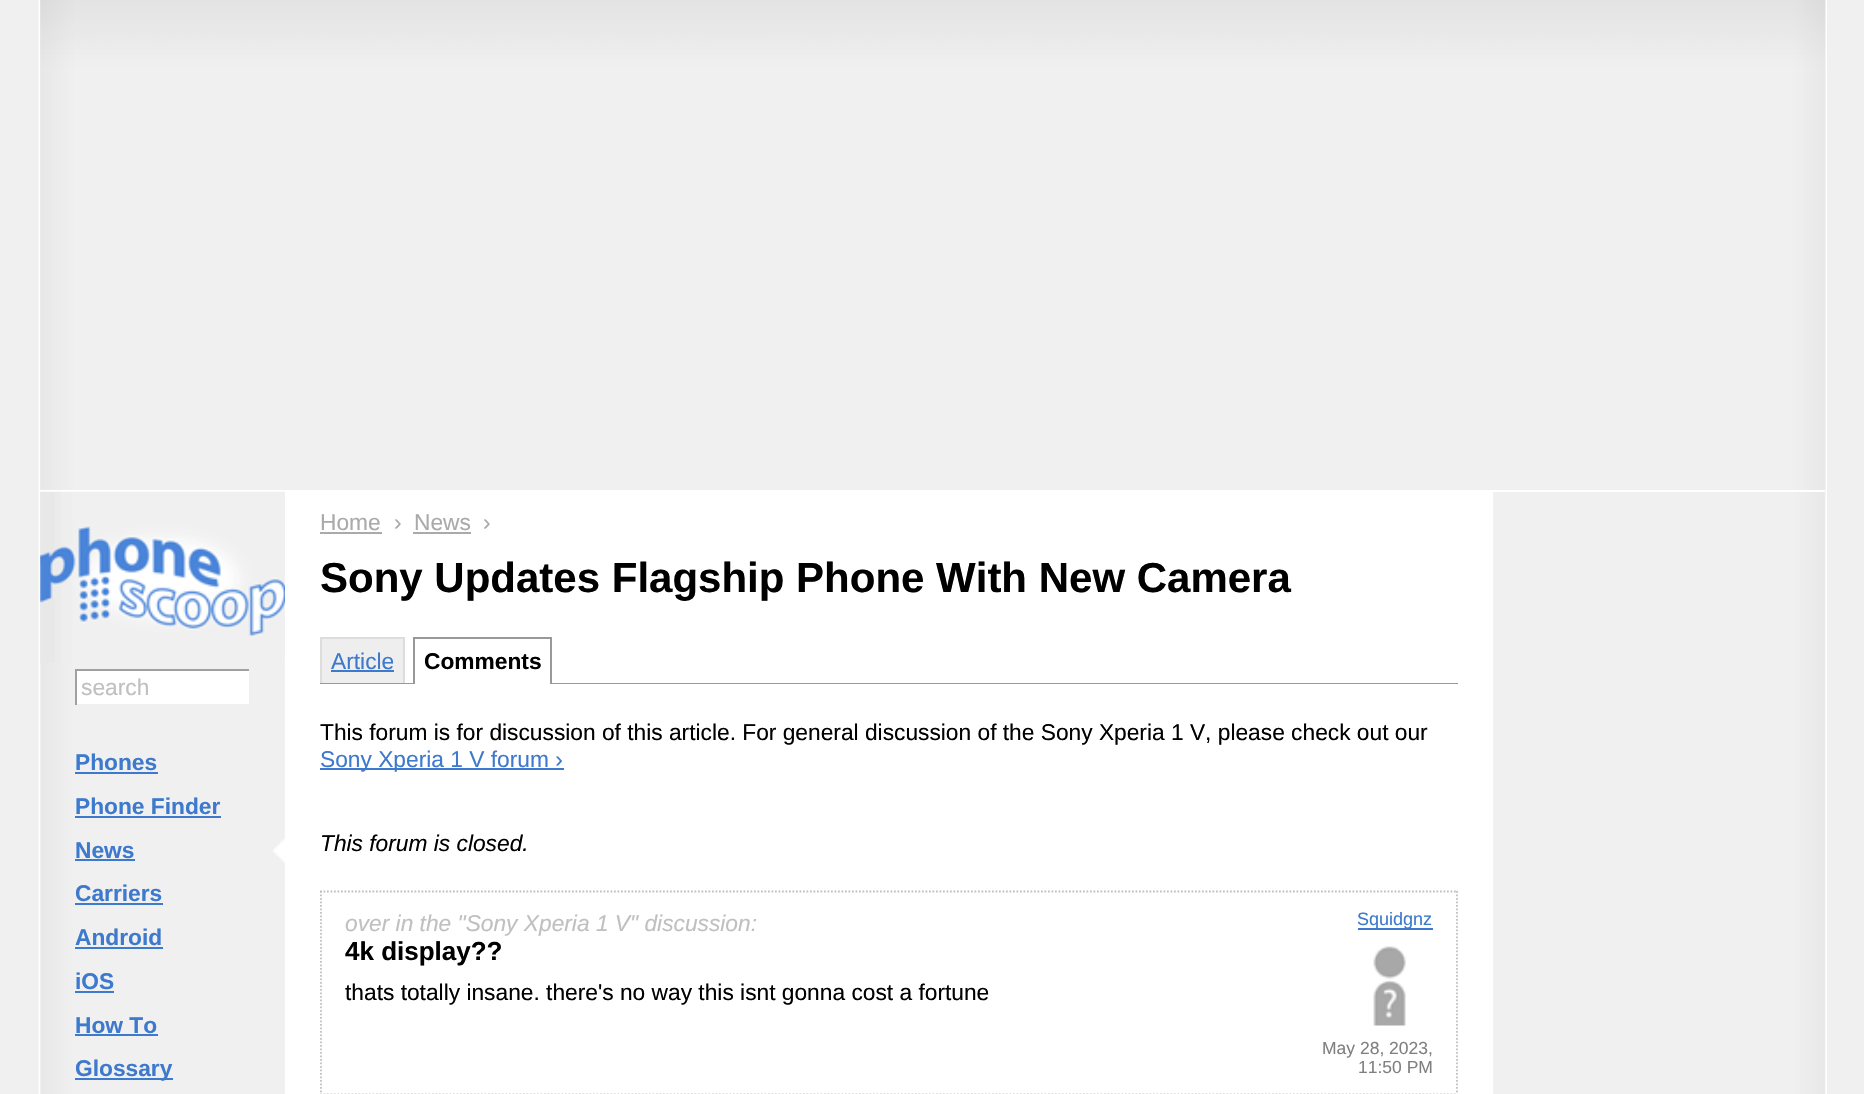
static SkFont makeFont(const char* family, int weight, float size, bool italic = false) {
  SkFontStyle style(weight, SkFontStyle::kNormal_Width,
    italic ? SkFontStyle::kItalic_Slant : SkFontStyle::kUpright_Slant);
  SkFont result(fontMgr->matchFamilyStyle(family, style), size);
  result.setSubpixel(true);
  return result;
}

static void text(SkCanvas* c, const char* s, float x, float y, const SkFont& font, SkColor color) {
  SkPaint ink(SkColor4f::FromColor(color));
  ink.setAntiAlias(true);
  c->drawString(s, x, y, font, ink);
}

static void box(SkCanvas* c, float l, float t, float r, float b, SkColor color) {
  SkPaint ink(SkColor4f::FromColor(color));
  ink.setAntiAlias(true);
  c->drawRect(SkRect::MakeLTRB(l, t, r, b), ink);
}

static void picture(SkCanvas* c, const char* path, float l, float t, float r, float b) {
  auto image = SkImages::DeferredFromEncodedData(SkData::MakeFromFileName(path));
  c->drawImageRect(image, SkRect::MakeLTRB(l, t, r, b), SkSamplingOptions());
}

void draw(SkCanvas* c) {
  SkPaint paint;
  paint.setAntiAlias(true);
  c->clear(0xfff0f0f0);
  picture(c, "img_01.png", 38, 0, 1827, 1094);
  picture(c, "img_02.png", 40, 0, 1826, 492);
  box(c, 40, 490, 1825, 492, 0xffffffff);
  picture(c, "img_03.png", 40, 491, 286, 663);
  box(c, 77, 671, 249, 704, 0xffffffff);
  box(c, 75, 669, 250, 671, 0xffa0a0a0);
  box(c, 249, 669, 250, 671, 0xfff0f0f0);
  box(c, 75, 669, 77, 705, 0xffa0a0a0);
  SkFont face1 = makeFont("Arimo", 400, 22.75f);
  text(c, "search", 81, 695, face1, 0xffc0c0c0);
  SkFont face2 = makeFont("Arimo", 700, 22.75f);
  text(c, "Phones", 75, 770, face2, 0xff3d79cc);
  box(c, 75, 772, 158, 774, 0xff3d79cc);
  text(c, "Phone Finder", 75, 814, face2, 0xff3d79cc);
  box(c, 75, 816, 221, 818, 0xff3d79cc);
  picture(c, "img_04.png", 273, 838, 285, 863);
  text(c, "News", 75, 858, face2, 0xff3d79cc);
  box(c, 75, 859, 135, 861, 0xff3d79cc);
  text(c, "Carriers", 75, 901, face2, 0xff3d79cc);
  box(c, 75, 903, 163, 905, 0xff3d79cc);
  text(c, "Android", 75, 945, face2, 0xff3d79cc);
  box(c, 75, 947, 163, 949, 0xff3d79cc);
  text(c, "iOS", 75, 989, face2, 0xff3d79cc);
  box(c, 75, 991, 114, 993, 0xff3d79cc);
  text(c, "How To", 75, 1033, face2, 0xff3d79cc);
  box(c, 75, 1034, 158, 1036, 0xff3d79cc);
  box(c, 75, 1078, 173, 1080, 0xff3d79cc);
  text(c, "Glossary", 75, 1076, face2, 0xff3d79cc);
  box(c, 285, 492, 1493, 1094, 0xffffffff);
  text(c, "Home", 320, 530, face1, 0xffaaaaaa);
  box(c, 320, 532, 382, 534, 0xffaaaaaa);
  text(c, "›", 394, 530, face1, 0xffaaaaaa);
  text(c, "News", 414, 530, face1, 0xffaaaaaa);
  box(c, 413, 532, 471, 534, 0xffaaaaaa);
  text(c, "›", 483, 530, face1, 0xffaaaaaa);
  SkFont face3 = makeFont("Arimo", 700, 42);
  text(c, "Sony Updates Flagship Phone With New Camera", 320, 592, face3, 0xff000000);
  box(c, 322, 639, 403, 683, 0xffeeeeee);
  box(c, 320, 637, 404, 639, 0xffdddddd);
  box(c, 403, 637, 405, 683, 0xffdddddd);
  box(c, 320, 637, 322, 683, 0xffdddddd);
  text(c, "Article", 331, 669, face1, 0xff3d79cc);
  box(c, 331, 670, 394, 672, 0xff3d79cc);
  box(c, 320, 683, 1458, 684, 0xff999999);
  box(c, 415, 683, 550, 684, 0xffffffff);
  box(c, 413, 637, 551, 639, 0xff999999);
  box(c, 550, 637, 552, 684, 0xff999999);
  box(c, 413, 637, 415, 684, 0xff999999);
  text(c, "Comments", 424, 669, face2, 0xff000000);
  text(c, "This forum is for discussion of this article. For general discussion of the Sony Xperia 1 V, please check out our", 320, 740, face1, 0xff000000);
  box(c, 320, 768, 564, 770, 0xff3d79cc);
  text(c, "Sony Xperia 1 V forum ›", 320, 767, face1, 0xff3d79cc);
  SkFont face4 = makeFont("Arimo", 400, 22.75f, true);
  text(c, "This forum is closed.", 320, 851, face4, 0xff000000);
  paint.setStyle(SkPaint::kStroke_Style);
  paint.setStrokeWidth(1.8f);
  paint.setColor(0xffc0c0c0);
  paint.setPathEffect(SkDashPathEffect::Make({{1.75f, 1.75f}}, 0));
  c->drawPath(SkPathBuilder().moveTo(320, 891.5f).lineTo(1458, 891.5f).detach(), paint);
  paint.setPathEffect(nullptr);
  paint.setPathEffect(SkDashPathEffect::Make({{1.75f, 1.75f}}, 0));
  c->drawPath(SkPathBuilder().moveTo(1457, 891).lineTo(1457, 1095.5f).detach(), paint);
  paint.setPathEffect(nullptr);
  paint.setPathEffect(SkDashPathEffect::Make({{1.75f, 1.75f}}, 0));
  c->drawPath(SkPathBuilder().moveTo(320, 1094.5f).lineTo(1458, 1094.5f).detach(), paint);
  paint.setPathEffect(nullptr);
  paint.setPathEffect(SkDashPathEffect::Make({{1.75f, 1.75f}}, 0));
  c->drawPath(SkPathBuilder().moveTo(321, 891).lineTo(321, 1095.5f).detach(), paint);
  paint.setPathEffect(nullptr);
  text(c, "over in the \"Sony Xperia 1 V\" discussion:", 345, 931, face4, 0xffc0c0c0);
  box(c, 1358, 928, 1433, 930, 0xff3d79cc);
  SkFont face5 = makeFont("Arimo", 400, 18);
  text(c, "Squidgnz", 1357, 925, face5, 0xff3d79cc);
  picture(c, "img_05.png", 1373, 946, 1406, 1026);
  SkFont face6 = makeFont("Arimo", 400, 17.5f);
  text(c, "May 28, 2023,", 1322, 1054, face6, 0xff808080);
  text(c, "11:50 PM", 1358, 1073, face6, 0xff808080);
  SkFont face7 = makeFont("Arimo", 700, 26);
  text(c, "4k display?\077", 345, 960, face7, 0xff000000);
  text(c, "thats totally insane. there's no way this isnt gonna cost a fortune", 345, 1000, face1, 0xff000000);
}
